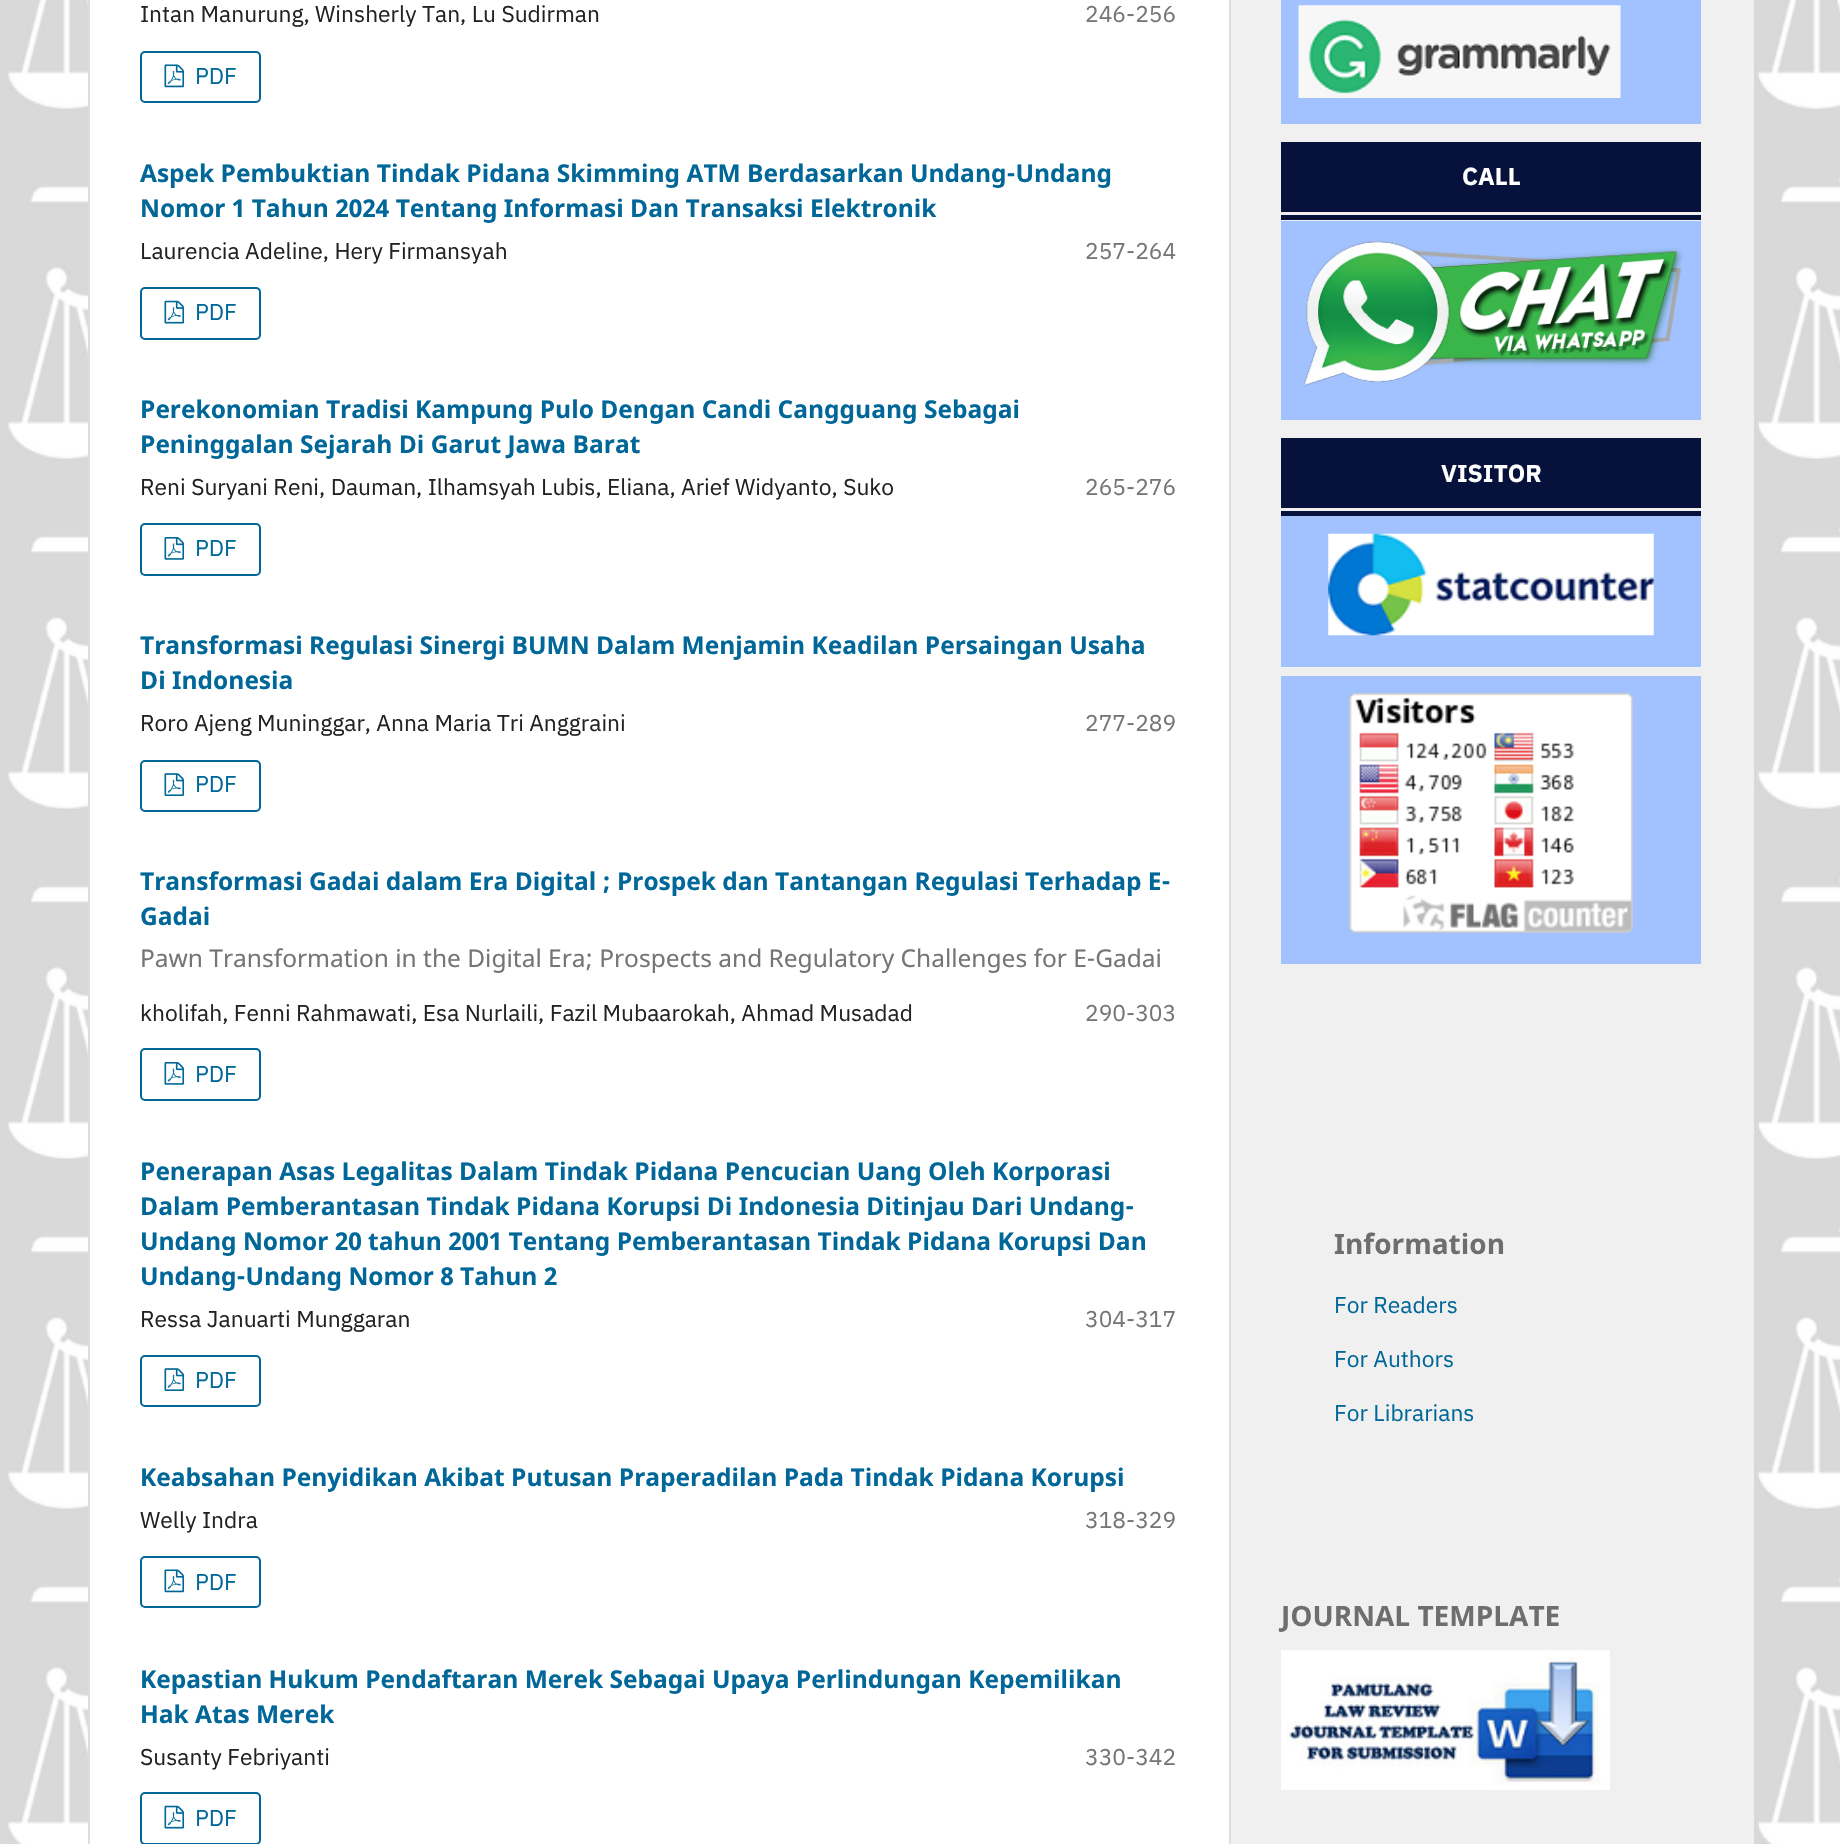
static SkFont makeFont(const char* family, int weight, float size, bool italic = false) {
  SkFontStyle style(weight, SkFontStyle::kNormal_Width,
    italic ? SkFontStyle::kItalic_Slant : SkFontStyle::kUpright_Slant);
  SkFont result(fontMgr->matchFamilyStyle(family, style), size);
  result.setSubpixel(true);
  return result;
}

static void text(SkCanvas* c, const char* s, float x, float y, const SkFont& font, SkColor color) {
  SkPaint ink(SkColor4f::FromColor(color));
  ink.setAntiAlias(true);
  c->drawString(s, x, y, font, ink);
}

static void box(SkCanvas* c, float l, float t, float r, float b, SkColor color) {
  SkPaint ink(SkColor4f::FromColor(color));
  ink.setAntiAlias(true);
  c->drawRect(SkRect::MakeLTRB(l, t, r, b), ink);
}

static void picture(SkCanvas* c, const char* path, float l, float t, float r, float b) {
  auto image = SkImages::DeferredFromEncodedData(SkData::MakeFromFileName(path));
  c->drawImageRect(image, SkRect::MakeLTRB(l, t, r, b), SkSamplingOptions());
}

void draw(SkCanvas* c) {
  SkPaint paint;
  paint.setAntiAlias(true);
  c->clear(0xffffffff);
  picture(c, "img_01.png", 0, 0, 1840, 1844);
  box(c, 1231, 0, 1754, 1844, 0xfff0f0f0);
  box(c, 90, 0, 1229, 1844, 0xffffffff);
  box(c, 88, 0, 90, 1844, 0xffdddddd);
  SkFont face1 = makeFont("IBM Plex Sans", 400, 22.8f);
  text(c, "Intan Manurung, Winsherly Tan, Lu Sudirman", 140, 22, face1, 0xff222222);
  text(c, "246-256", 1085, 22, face1, 0xff757575);
  paint.setStyle(SkPaint::kStroke_Style);
  paint.setStrokeWidth(2);
  paint.setColor(0xff006798);
  c->drawRoundRect(SkRect::MakeLTRB(141, 52, 260, 102), 4, 4, paint);
  picture(c, "img_02.png", 164, 64, 185, 88);
  text(c, "PDF", 195, 84, face1, 0xff006798);
  SkFont face2 = makeFont("Noto Sans", 700, 24.5f);
  text(c, "Aspek Pembuktian Tindak Pidana Skimming ATM Berdasarkan Undang-Undang", 140, 182, face2, 0xff006798);
  text(c, "Nomor 1 Tahun 2024 Tentang Informasi Dan Transaksi Elektronik", 140, 217, face2, 0xff006798);
  text(c, "Laurencia Adeline, Hery Firmansyah", 140, 259, face1, 0xff222222);
  text(c, "257-264", 1085, 259, face1, 0xff757575);
  c->drawRoundRect(SkRect::MakeLTRB(141, 288, 260, 339), 4, 4, paint);
  picture(c, "img_03.png", 164, 300, 185, 324);
  text(c, "PDF", 195, 320, face1, 0xff006798);
  text(c, "Perekonomian Tradisi Kampung Pulo Dengan Candi Cangguang Sebagai", 140, 418, face2, 0xff006798);
  text(c, "Peninggalan Sejarah Di Garut Jawa Barat", 140, 453, face2, 0xff006798);
  text(c, "Reni Suryani Reni, Dauman, Ilhamsyah Lubis, Eliana, Arief Widyanto, Suko", 140, 495, face1, 0xff222222);
  text(c, "265-276", 1085, 495, face1, 0xff757575);
  c->drawRoundRect(SkRect::MakeLTRB(141, 524, 260, 575), 4, 4, paint);
  picture(c, "img_04.png", 164, 537, 185, 560);
  text(c, "PDF", 195, 556, face1, 0xff006798);
  text(c, "Transformasi Regulasi Sinergi BUMN Dalam Menjamin Keadilan Persaingan Usaha", 140, 654, face2, 0xff006798);
  text(c, "Di Indonesia", 140, 689, face2, 0xff006798);
  text(c, "Roro Ajeng Muninggar, Anna Maria Tri Anggraini", 140, 731, face1, 0xff222222);
  text(c, "277-289", 1085, 731, face1, 0xff757575);
  c->drawRoundRect(SkRect::MakeLTRB(141, 761, 260, 811), 4, 4, paint);
  picture(c, "img_05.png", 164, 773, 185, 796);
  text(c, "PDF", 195, 792, face1, 0xff006798);
  text(c, "Transformasi Gadai dalam Era Digital ; Prospek dan Tantangan Regulasi Terhadap E-", 140, 890, face2, 0xff006798);
  text(c, "Gadai", 140, 925, face2, 0xff006798);
  SkFont face3 = makeFont("Noto Sans", 400, 24.5f);
  text(c, "Pawn Transformation in the Digital Era; Prospects and Regulatory Challenges for E-Gadai", 140, 967, face3, 0xff757575);
  text(c, "kholifah, Fenni Rahmawati, Esa Nurlaili, Fazil Mubaarokah, Ahmad Musadad", 140, 1021, face1, 0xff222222);
  text(c, "290-303", 1085, 1021, face1, 0xff757575);
  c->drawRoundRect(SkRect::MakeLTRB(141, 1049, 260, 1100), 4, 4, paint);
  picture(c, "img_04.png", 164, 1062, 185, 1085);
  text(c, "PDF", 195, 1082, face1, 0xff006798);
  text(c, "Penerapan Asas Legalitas Dalam Tindak Pidana Pencucian Uang Oleh Korporasi", 140, 1180, face2, 0xff006798);
  text(c, "Dalam Pemberantasan Tindak Pidana Korupsi Di Indonesia Ditinjau Dari Undang-", 140, 1215, face2, 0xff006798);
  text(c, "Undang Nomor 20 tahun 2001 Tentang Pemberantasan Tindak Pidana Korupsi Dan", 140, 1250, face2, 0xff006798);
  text(c, "Undang-Undang Nomor 8 Tahun 2", 140, 1285, face2, 0xff006798);
  text(c, "Ressa Januarti Munggaran", 140, 1327, face1, 0xff222222);
  text(c, "304-317", 1085, 1327, face1, 0xff757575);
  c->drawRoundRect(SkRect::MakeLTRB(141, 1356, 260, 1406), 4, 4, paint);
  picture(c, "img_05.png", 164, 1368, 185, 1391);
  text(c, "PDF", 195, 1388, face1, 0xff006798);
  text(c, "Keabsahan Penyidikan Akibat Putusan Praperadilan Pada Tindak Pidana Korupsi", 140, 1486, face2, 0xff006798);
  text(c, "Welly Indra", 140, 1528, face1, 0xff222222);
  text(c, "318-329", 1085, 1528, face1, 0xff757575);
  c->drawRoundRect(SkRect::MakeLTRB(141, 1557, 260, 1607), 4, 4, paint);
  picture(c, "img_02.png", 164, 1569, 185, 1593);
  text(c, "PDF", 195, 1590, face1, 0xff006798);
  text(c, "Kepastian Hukum Pendaftaran Merek Sebagai Upaya Perlindungan Kepemilikan", 140, 1688, face2, 0xff006798);
  text(c, "Hak Atas Merek", 140, 1723, face2, 0xff006798);
  text(c, "Susanty Febriyanti", 140, 1765, face1, 0xff222222);
  text(c, "330-342", 1085, 1765, face1, 0xff757575);
  c->drawRoundRect(SkRect::MakeLTRB(141, 1793, 260, 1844), 4, 4, paint);
  picture(c, "img_03.png", 164, 1805, 185, 1829);
  text(c, "PDF", 195, 1826, face1, 0xff006798);
  box(c, 1229, 0, 1231, 1844, 0xffdddddd);
  box(c, 1281, 0, 1701, 124, 0xffa1c2ff);
  picture(c, "img_06.png", 1298, 5, 1621, 98);
  box(c, 1281, 215, 1701, 220, 0xff06123b);
  box(c, 1281, 142, 1701, 212, 0xff06123b);
  SkFont face4 = makeFont("IBM Plex Sans", 700, 24.5f);
  text(c, "CALL", 1462, 185, face4, 0xffffffff);
  box(c, 1281, 221, 1701, 420, 0xffa1c2ff);
  picture(c, "img_07.png", 1304, 241, 1683, 386);
  box(c, 1281, 511, 1701, 516, 0xff06123b);
  box(c, 1281, 438, 1701, 508, 0xff06123b);
  text(c, "VISITOR", 1441, 482, face4, 0xffffffff);
  box(c, 1281, 516, 1701, 667, 0xffa1c2ff);
  picture(c, "img_08.png", 1328, 533, 1654, 636);
  box(c, 1281, 676, 1701, 964, 0xffa1c2ff);
  picture(c, "img_09.png", 1349, 693, 1633, 933);
  SkFont face5 = makeFont("Noto Sans", 700, 28);
  text(c, "Information", 1334, 1254, face5, 0xff6e6e6e);
  text(c, "For Readers", 1334, 1313, face1, 0xff006798);
  text(c, "For Authors", 1334, 1367, face1, 0xff006798);
  text(c, "For Librarians", 1334, 1421, face1, 0xff006798);
  text(c, "JOURNAL TEMPLATE", 1281, 1626, face5, 0xff6e6e6e);
  picture(c, "img_10.png", 1281, 1650, 1610, 1790);
}
